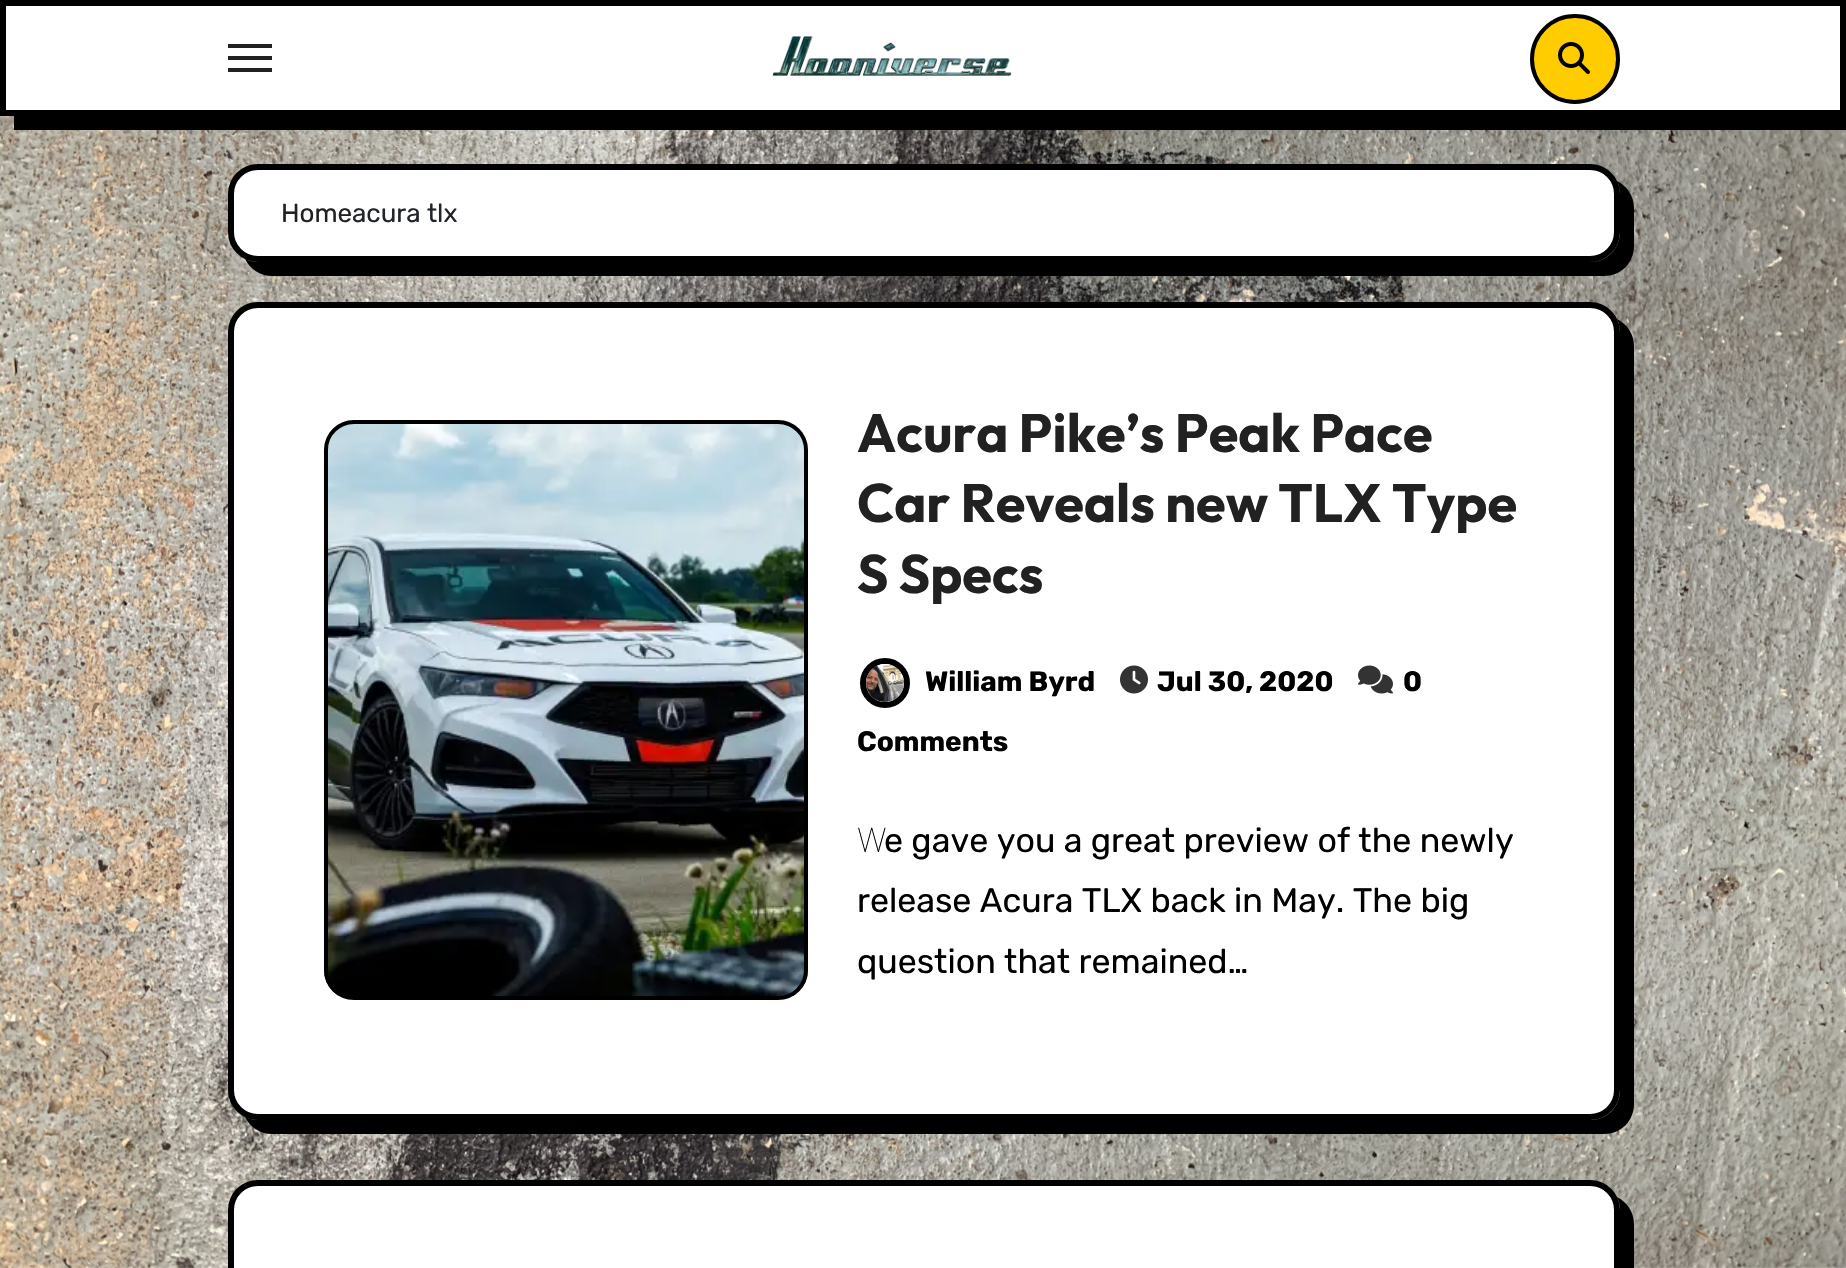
static SkFont makeFont(const char* family, int weight, float size, bool italic = false) {
  SkFontStyle style(weight, SkFontStyle::kNormal_Width,
    italic ? SkFontStyle::kItalic_Slant : SkFontStyle::kUpright_Slant);
  SkFont result(fontMgr->matchFamilyStyle(family, style), size);
  result.setSubpixel(true);
  return result;
}

static void text(SkCanvas* c, const char* s, float x, float y, const SkFont& font, SkColor color) {
  SkPaint ink(SkColor4f::FromColor(color));
  ink.setAntiAlias(true);
  c->drawString(s, x, y, font, ink);
}

static void box(SkCanvas* c, float l, float t, float r, float b, SkColor color) {
  SkPaint ink(SkColor4f::FromColor(color));
  ink.setAntiAlias(true);
  c->drawRect(SkRect::MakeLTRB(l, t, r, b), ink);
}

static void picture(SkCanvas* c, const char* path, float l, float t, float r, float b) {
  auto image = SkImages::DeferredFromEncodedData(SkData::MakeFromFileName(path));
  c->drawImageRect(image, SkRect::MakeLTRB(l, t, r, b), SkSamplingOptions());
}

void draw(SkCanvas* c) {
  SkPaint paint;
  paint.setAntiAlias(true);
  c->clear(0xffffffff);
  picture(c, "img_01.png", 0, 116, 1846, 1268);
  paint.setColor(0xff000000);
  c->drawPath(SkPathBuilder().moveTo(14, 116).lineTo(14, 130).lineTo(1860, 130).lineTo(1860, 14).lineTo(1846, 14).lineTo(1846, 116).close().detach(), paint);
  paint.setStyle(SkPaint::kStroke_Style);
  paint.setStrokeWidth(6);
  c->drawRect(SkRect::MakeLTRB(3, 3, 1843, 113), paint);
  box(c, 228, 44, 272, 48, 0xff212121);
  box(c, 228, 56, 272, 60, 0xff212121);
  box(c, 228, 68, 272, 72, 0xff212121);
  picture(c, "img_02.png", 772, 36, 1012, 76);
  paint.setStyle(SkPaint::kFill_Style);
  paint.setColor(0xffffcc00);
  c->drawCircle(1575, 59, 43, paint);
  paint.setStyle(SkPaint::kStroke_Style);
  paint.setStrokeWidth(4);
  paint.setColor(0xff000000);
  c->drawCircle(1575, 59, 43, paint);
  picture(c, "img_03.png", 1558, 42, 1590, 74);
  paint.setStyle(SkPaint::kFill_Style);
  c->drawPath(SkPathBuilder().moveTo(245, 259).cubicTo(250, 269, 260, 276, 272, 276).lineTo(1604, 276).cubicTo(1621, 276, 1634, 263, 1634, 246).lineTo(1634, 208).cubicTo(1634, 196, 1627, 186, 1617, 181).cubicTo(1619, 185, 1620, 189, 1620, 194).lineTo(1620, 232).cubicTo(1620, 249, 1607, 262, 1590, 262).lineTo(258, 262).cubicTo(253, 262, 249, 261, 245, 259).close().detach(), paint);
  paint.setColor(0xffffffff);
  c->drawRoundRect(SkRect::MakeLTRB(231, 167, 1617, 259), 27, 27, paint);
  paint.setStyle(SkPaint::kStroke_Style);
  paint.setStrokeWidth(6);
  paint.setColor(0xff000000);
  c->drawRoundRect(SkRect::MakeLTRB(231, 167, 1617, 259), 27, 27, paint);
  SkFont face1 = makeFont("Rubik", 300, 26);
  text(c, "Home", 281, 222, face1, 0xff212121);
  text(c, "acura tlx", 352, 222, face1, 0xff212529);
  paint.setStyle(SkPaint::kFill_Style);
  c->drawPath(SkPathBuilder().moveTo(245, 1117).cubicTo(250, 1127, 260, 1134, 272, 1134).lineTo(1604, 1134).cubicTo(1621, 1134, 1634, 1121, 1634, 1104).lineTo(1634, 346).cubicTo(1634, 334, 1627, 324, 1617, 319).cubicTo(1619, 323, 1620, 327, 1620, 332).lineTo(1620, 1090).cubicTo(1620, 1107, 1607, 1120, 1590, 1120).lineTo(258, 1120).cubicTo(253, 1120, 249, 1119, 245, 1117).close().detach(), paint);
  paint.setColor(0xffffffff);
  c->drawRoundRect(SkRect::MakeLTRB(231, 305, 1617, 1117), 27, 27, paint);
  paint.setStyle(SkPaint::kStroke_Style);
  paint.setColor(0xff000000);
  c->drawRoundRect(SkRect::MakeLTRB(231, 305, 1617, 1117), 27, 27, paint);
  picture(c, "img_04.png", 324, 424, 808, 996);
  paint.setStrokeWidth(4);
  c->drawRoundRect(SkRect::MakeLTRB(326, 422, 806, 998), 28, 28, paint);
  SkFont face2 = makeFont("Outfit", 700, 54);
  text(c, "Acura Pike’s Peak Pace", 857, 452, face2, 0xff212121);
  text(c, "Car Reveals new TLX Type", 857, 522, face2, 0xff212121);
  text(c, "S Specs", 857, 593, face2, 0xff212121);
  paint.setStrokeWidth(6);
  c->drawCircle(885, 683, 22, paint);
  picture(c, "img_05.png", 866, 664, 904, 702);
  SkFont face3 = makeFont("Rubik", 700, 28);
  text(c, "William Byrd", 925, 691, face3, 0xff000000);
  picture(c, "img_06.png", 1358, 665, 1393, 694);
  text(c, "0", 1403, 691, face3, 0xff000000);
  text(c, "Comments", 857, 751, face3, 0xff000000);
  picture(c, "img_07.png", 1120, 665, 1148, 694);
  text(c, "Jul 30, 2020", 1157, 691, face3, 0xff000000);
  SkFont face4 = makeFont("Noto Sans", 100, 34);
  text(c, "W", 857, 852, face4, 0xff000000);
  SkFont face5 = makeFont("Rubik", 300, 34);
  text(c, "e gave you a great preview of the newly", 884, 852, face5, 0xff000000);
  text(c, "release Acura TLX back in May. The big", 857, 912, face5, 0xff000000);
  text(c, "question that remained…", 857, 973, face5, 0xff000000);
  paint.setStyle(SkPaint::kFill_Style);
  c->drawPath(SkPathBuilder().moveTo(245, 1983).cubicTo(250, 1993, 260, 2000, 272, 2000).lineTo(1604, 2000).cubicTo(1621, 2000, 1634, 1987, 1634, 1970).lineTo(1634, 1224).cubicTo(1634, 1212, 1627, 1202, 1617, 1197).cubicTo(1619, 1201, 1620, 1205, 1620, 1210).lineTo(1620, 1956).cubicTo(1620, 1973, 1607, 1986, 1590, 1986).lineTo(258, 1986).cubicTo(253, 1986, 249, 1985, 245, 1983).close().detach(), paint);
  paint.setColor(0xffffffff);
  c->drawRoundRect(SkRect::MakeLTRB(231, 1183, 1617, 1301), 27, 27, paint);
  paint.setStyle(SkPaint::kStroke_Style);
  paint.setColor(0xff000000);
  c->drawRoundRect(SkRect::MakeLTRB(231, 1183, 1617, 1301), 27, 27, paint);
}
